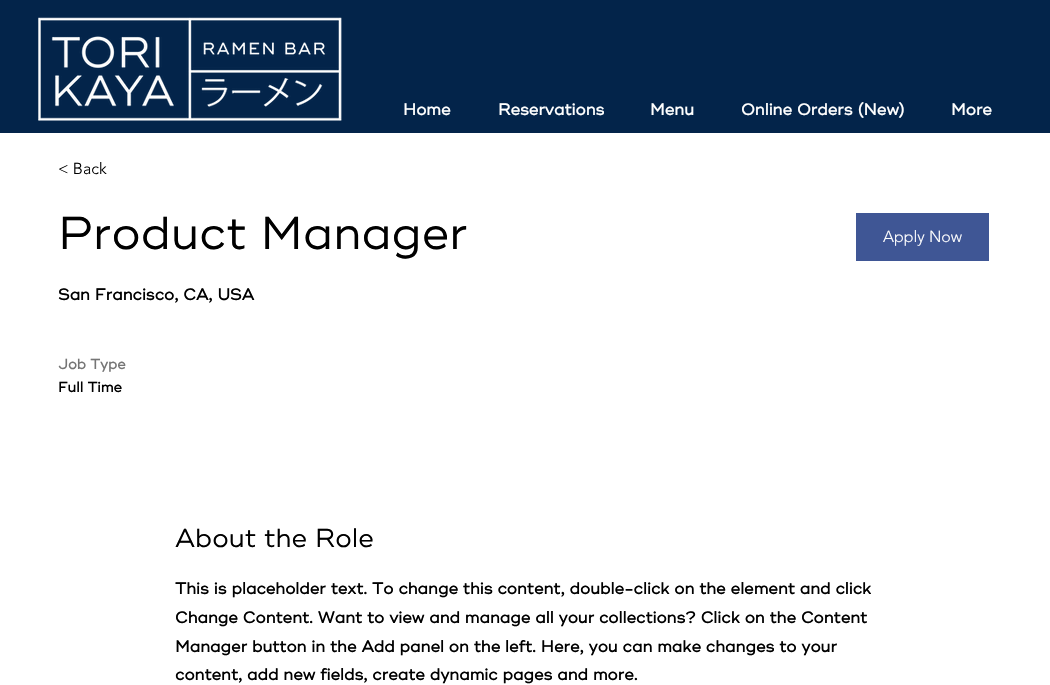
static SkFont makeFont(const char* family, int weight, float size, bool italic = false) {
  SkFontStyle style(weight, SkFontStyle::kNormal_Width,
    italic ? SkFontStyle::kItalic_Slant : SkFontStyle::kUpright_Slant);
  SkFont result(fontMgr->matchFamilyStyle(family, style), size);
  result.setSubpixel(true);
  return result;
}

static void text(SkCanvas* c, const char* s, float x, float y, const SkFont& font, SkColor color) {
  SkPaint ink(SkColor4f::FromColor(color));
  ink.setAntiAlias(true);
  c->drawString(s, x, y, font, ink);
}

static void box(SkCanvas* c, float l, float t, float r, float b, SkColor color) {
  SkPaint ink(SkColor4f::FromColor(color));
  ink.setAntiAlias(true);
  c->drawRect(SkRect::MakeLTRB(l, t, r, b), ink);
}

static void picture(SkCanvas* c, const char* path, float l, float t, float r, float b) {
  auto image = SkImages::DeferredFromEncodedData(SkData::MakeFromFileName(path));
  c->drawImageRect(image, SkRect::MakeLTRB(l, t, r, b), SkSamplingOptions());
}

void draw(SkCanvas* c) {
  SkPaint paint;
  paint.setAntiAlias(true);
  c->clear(0xffffffff);
  box(c, 0, 0, 1050, 133, 0xff03244a);
  picture(c, "img_01.png", 38, 17, 342, 121);
  SkFont face1 = makeFont("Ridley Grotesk", 700, 16);
  text(c, "Home", 403, 115, face1, 0xffffffff);
  text(c, "Reservations", 498, 115, face1, 0xffffffff);
  text(c, "Menu", 650, 115, face1, 0xffffffff);
  text(c, "Online Orders (New)", 741, 115, face1, 0xffffffff);
  text(c, "More", 951, 115, face1, 0xffffffff);
  SkFont face2 = makeFont("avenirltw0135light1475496", 300, 16);
  text(c, "< Back", 58, 174, face2, 0xff000000);
  SkFont face3 = makeFont("Ridley Grotesk", 400, 46);
  text(c, "Product Manager", 58, 249, face3, 0xff000000);
  box(c, 856, 213, 989, 261, 0xff3f5695);
  text(c, "Apply Now", 883, 242, face2, 0xffffffff);
  text(c, "San Francisco, CA, USA", 58, 300, face1, 0xff000000);
  SkFont face4 = makeFont("Ridley Grotesk", 700, 14);
  text(c, "Job Type", 58, 369, face4, 0xff757575);
  text(c, "Full Time", 58, 392, face4, 0xff000000);
  SkFont face5 = makeFont("Ridley Grotesk", 400, 26);
  text(c, "About the Role", 175, 547, face5, 0xff000000);
  text(c, "This is placeholder text. To change this content, double-click on the element and click", 175, 594, face1, 0xff000000);
  text(c, "Change Content. Want to view and manage all your collections? Click on the Content", 175, 623, face1, 0xff000000);
  text(c, "Manager button in the Add panel on the left. Here, you can make changes to your", 175, 652, face1, 0xff000000);
  text(c, "content, add new fields, create dynamic pages and more.", 175, 680, face1, 0xff000000);
}
